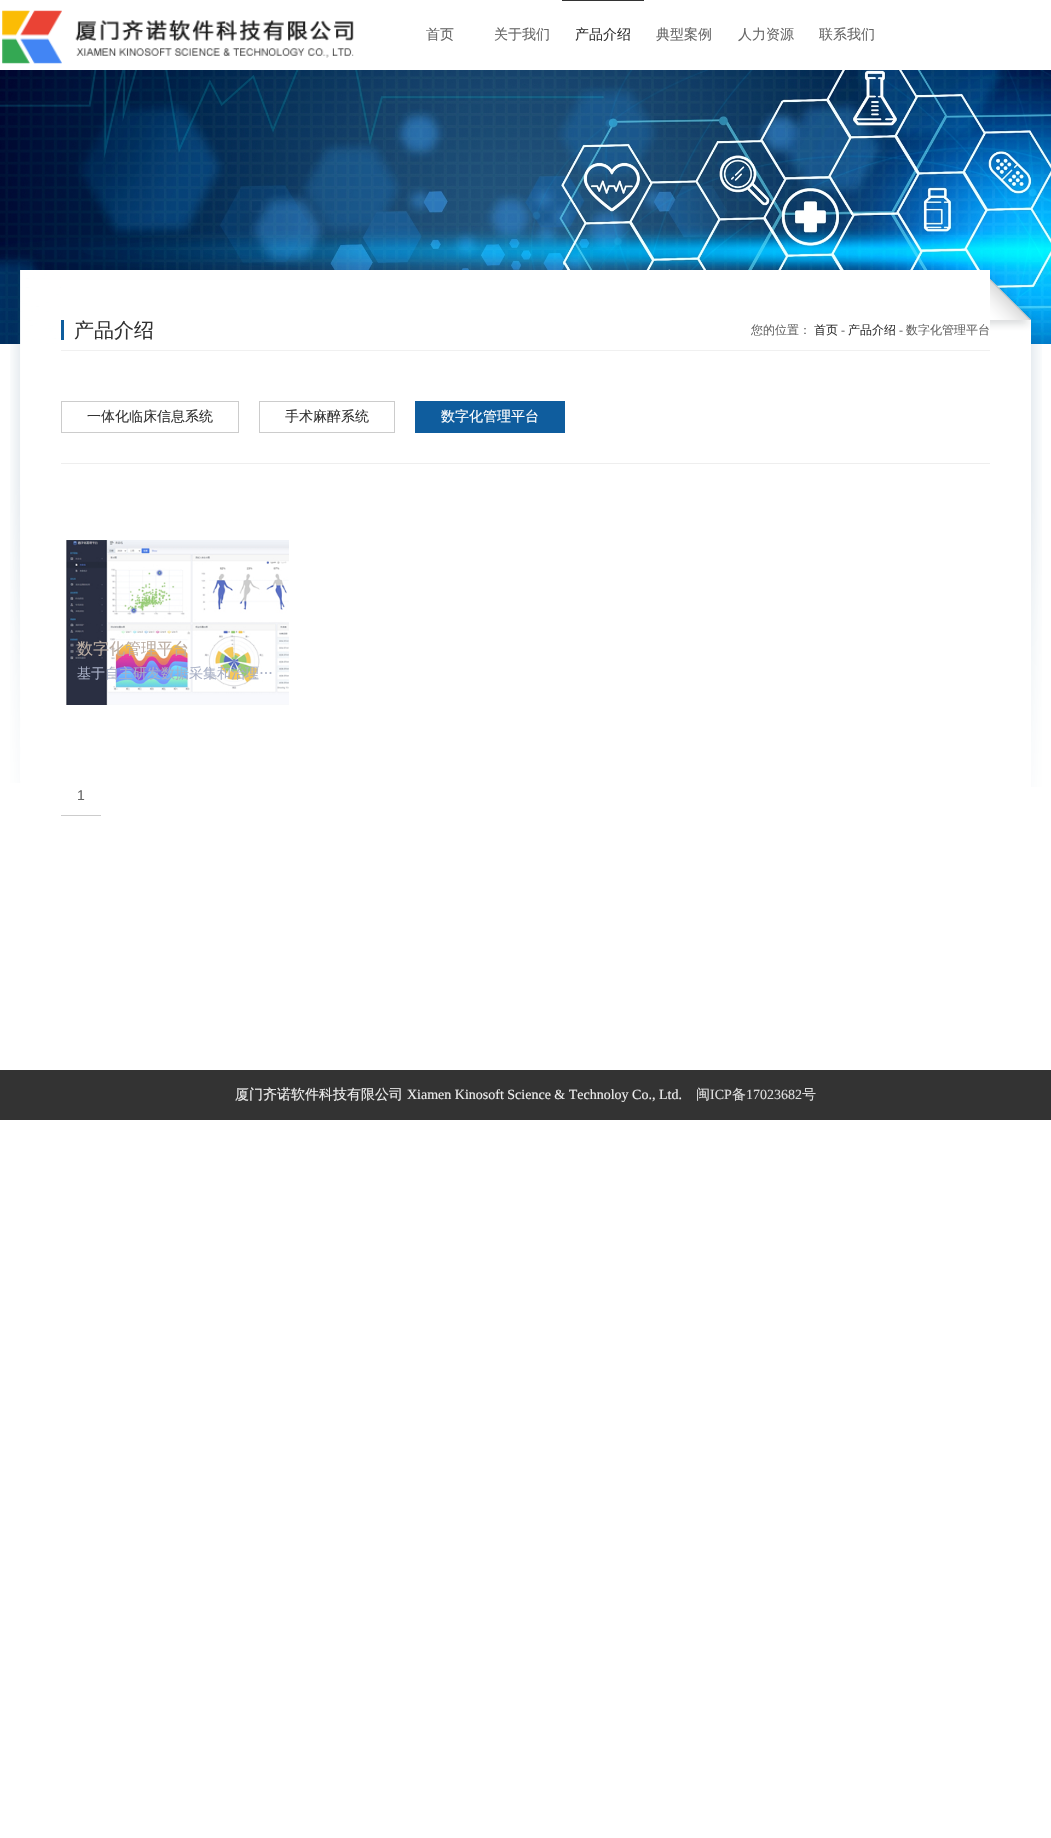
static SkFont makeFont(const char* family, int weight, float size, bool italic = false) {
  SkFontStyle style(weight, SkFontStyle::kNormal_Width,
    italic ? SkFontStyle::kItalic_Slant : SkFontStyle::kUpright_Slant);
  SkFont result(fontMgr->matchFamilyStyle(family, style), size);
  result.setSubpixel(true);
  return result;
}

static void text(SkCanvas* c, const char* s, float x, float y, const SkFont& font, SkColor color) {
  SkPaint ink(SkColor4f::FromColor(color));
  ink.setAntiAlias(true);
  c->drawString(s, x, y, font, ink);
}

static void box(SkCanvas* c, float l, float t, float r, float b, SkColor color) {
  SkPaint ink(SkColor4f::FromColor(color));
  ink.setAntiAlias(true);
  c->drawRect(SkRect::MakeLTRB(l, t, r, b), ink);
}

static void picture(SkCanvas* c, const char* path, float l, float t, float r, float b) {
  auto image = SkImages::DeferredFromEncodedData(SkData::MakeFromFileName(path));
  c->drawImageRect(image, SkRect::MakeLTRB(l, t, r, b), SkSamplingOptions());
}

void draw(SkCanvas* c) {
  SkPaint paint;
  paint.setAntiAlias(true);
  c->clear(0xffffffff);
  picture(c, "img_01.png", 2, 10, 354, 64);
  SkFont face1 = makeFont("WenQuanYi Zen Hei", 500, 14);
  text(c, "首页", 426, 39, face1, 0xff666666);
  text(c, "关于我们", 494, 39, face1, 0xff666666);
  box(c, 562, 0, 644, 1, 0xff333333);
  text(c, "产品介绍", 575, 39, face1, 0xff333333);
  text(c, "典型案例", 656, 39, face1, 0xff666666);
  text(c, "人力资源", 738, 39, face1, 0xff666666);
  text(c, "联系我们", 819, 39, face1, 0xff666666);
  picture(c, "img_02.png", 0, 70, 1051, 344);
  picture(c, "img_03.png", 10, 270, 61, 783);
  box(c, 61, 270, 990, 344, 0xffffffff);
  box(c, 61, 350, 990, 351, 0xfff0f0f0);
  box(c, 61, 320, 64, 340, 0xff0e5d9d);
  SkFont face2 = makeFont("WenQuanYi Zen Hei", 500, 20);
  text(c, "产品介绍", 74, 337, face2, 0xff333333);
  SkFont face3 = makeFont("WenQuanYi Zen Hei", 500, 12);
  text(c, "您的位置：", 751, 334, face3, 0xff666666);
  text(c, "首页", 814, 334, face3, 0xff333333);
  SkFont face4 = makeFont("Liberation Serif", 400, 12);
  text(c, "-", 841, 334, face4, 0xff666666);
  text(c, "产品介绍", 848, 334, face3, 0xff333333);
  text(c, "-", 899, 334, face4, 0xff666666);
  text(c, "数字化管理平台", 906, 334, face3, 0xff666666);
  paint.setStyle(SkPaint::kStroke_Style);
  paint.setStrokeWidth(1);
  paint.setColor(0xffcccccc);
  c->drawRect(SkRect::MakeLTRB(61.5f, 401.5f, 238.5f, 432.5f), paint);
  text(c, "一体化临床信息系统", 87, 421, face1, 0xff333333);
  c->drawRect(SkRect::MakeLTRB(259.5f, 401.5f, 394.5f, 432.5f), paint);
  text(c, "手术麻醉系统", 285, 421, face1, 0xff333333);
  box(c, 415, 401, 565, 433, 0xff0f5d9e);
  text(c, "数字化管理平台", 441, 421, face1, 0xffffffff);
  box(c, 61, 463, 990, 464, 0xffeeeeee);
  picture(c, "img_04.png", 66, 540, 289, 705);
  SkFont face5 = makeFont("WenQuanYi Zen Hei", 500, 16);
  text(c, "数字化管理平台", 77, 654, face5, 0xffbbada2);
  text(c, "基于自主研发数据采集和治理…", 77, 678, face1, 0xffa7afc5);
  box(c, 61, 815, 101, 816, 0xffcccccc);
  SkFont face6 = makeFont("Liberation Sans", 400, 14);
  text(c, "1", 77, 800, face6, 0xff666666);
  picture(c, "img_05.png", 990, 275, 1042, 787);
  box(c, 0, 1070, 1051, 1120, 0xff333333);
  text(c, "厦门齐诺软件科技有限公司", 235, 1099, face1, 0xffeeeeee);
  SkFont face7 = makeFont("Liberation Serif", 400, 14);
  text(c, "Xiamen Kinosoft Science & Technoloy Co., Ltd.", 407, 1099, face7, 0xffeeeeee);
  text(c, "闽", 696, 1099, face1, 0xffdddddd);
  text(c, "ICP", 710, 1099, face7, 0xffdddddd);
  text(c, "备", 732, 1099, face1, 0xffdddddd);
  text(c, "17023682", 746, 1099, face7, 0xffdddddd);
  text(c, "号", 802, 1099, face1, 0xffdddddd);
}
